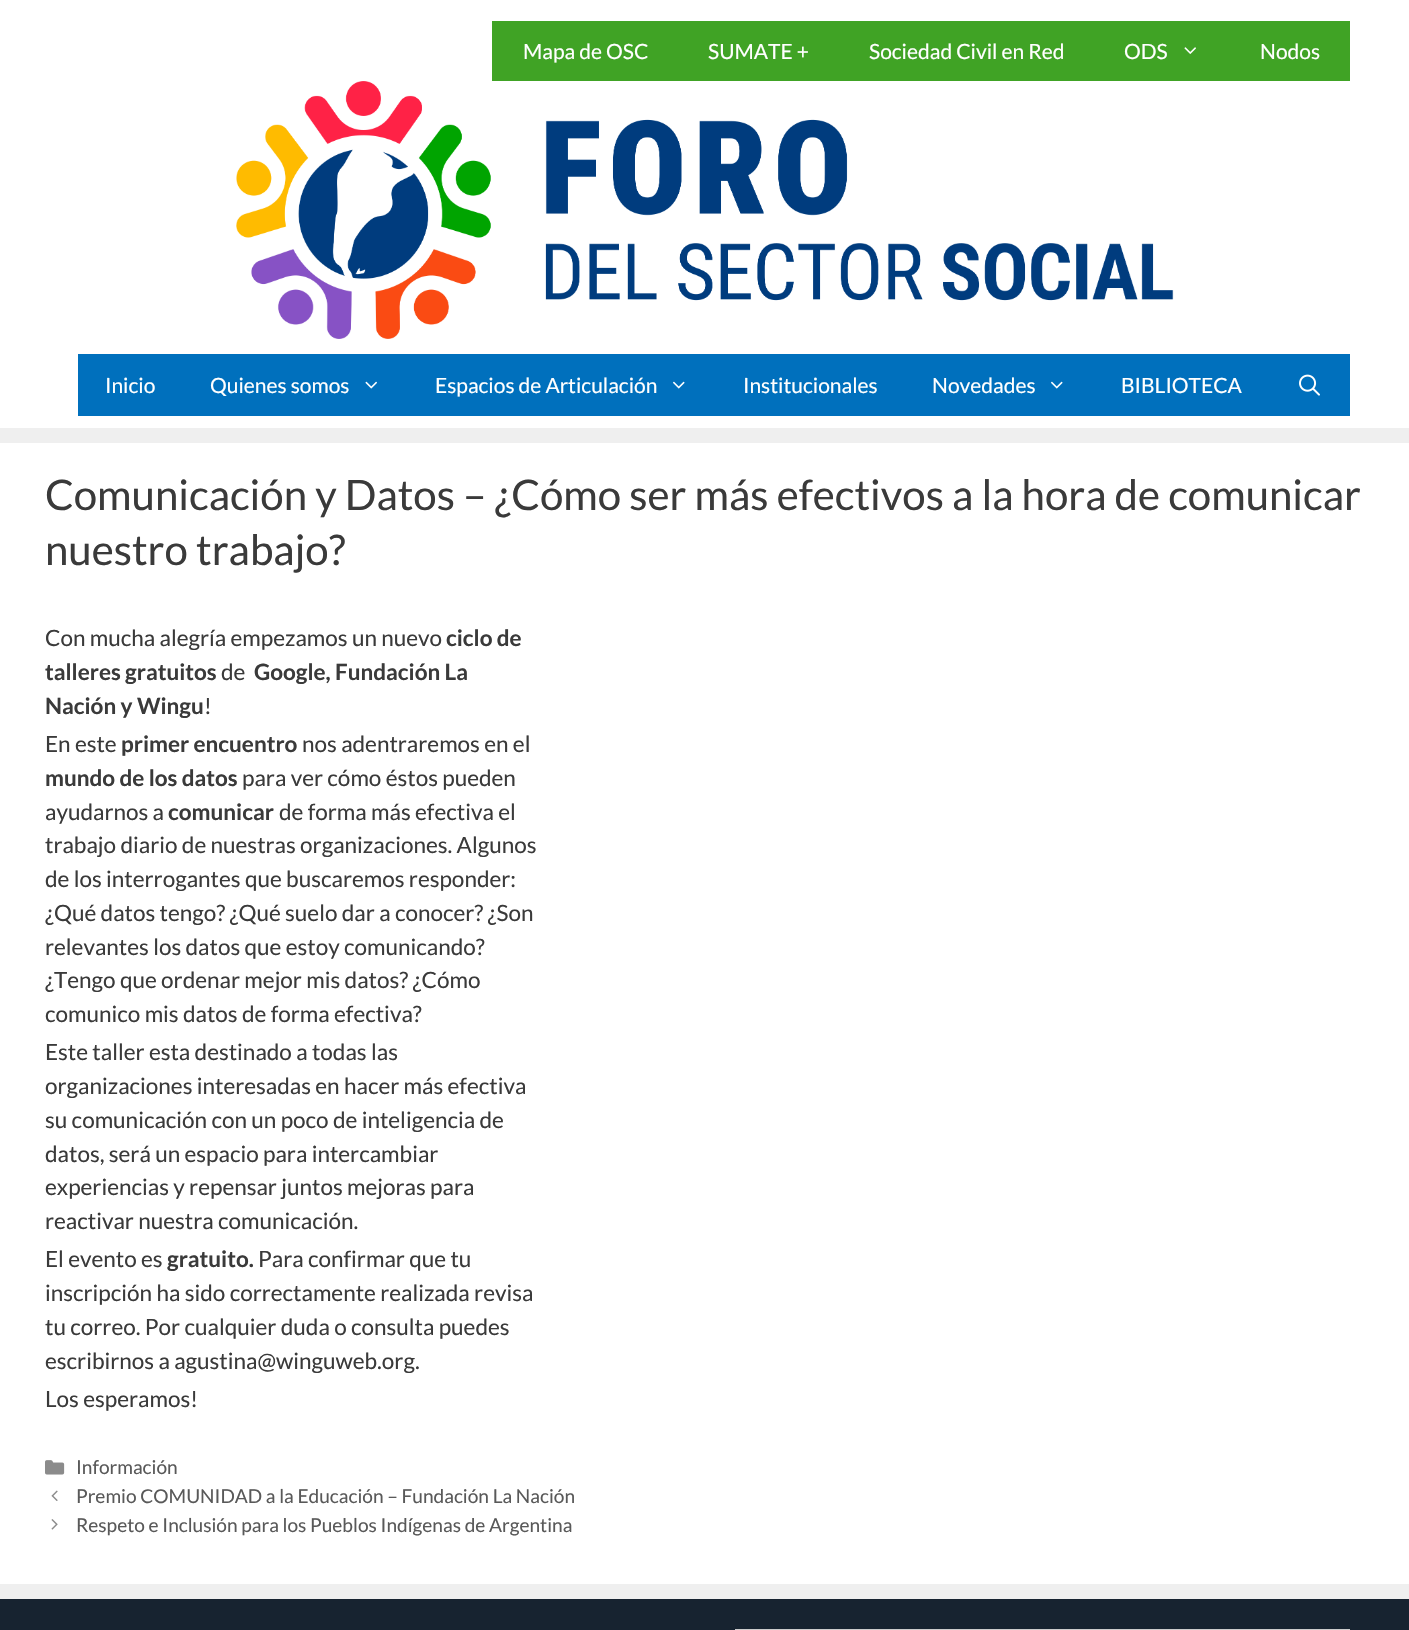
static SkFont makeFont(const char* family, int weight, float size, bool italic = false) {
  SkFontStyle style(weight, SkFontStyle::kNormal_Width,
    italic ? SkFontStyle::kItalic_Slant : SkFontStyle::kUpright_Slant);
  SkFont result(fontMgr->matchFamilyStyle(family, style), size);
  result.setSubpixel(true);
  return result;
}

static void text(SkCanvas* c, const char* s, float x, float y, const SkFont& font, SkColor color) {
  SkPaint ink(SkColor4f::FromColor(color));
  ink.setAntiAlias(true);
  c->drawString(s, x, y, font, ink);
}

static void box(SkCanvas* c, float l, float t, float r, float b, SkColor color) {
  SkPaint ink(SkColor4f::FromColor(color));
  ink.setAntiAlias(true);
  c->drawRect(SkRect::MakeLTRB(l, t, r, b), ink);
}

static void picture(SkCanvas* c, const char* path, float l, float t, float r, float b) {
  auto image = SkImages::DeferredFromEncodedData(SkData::MakeFromFileName(path));
  c->drawImageRect(image, SkRect::MakeLTRB(l, t, r, b), SkSamplingOptions());
}

void draw(SkCanvas* c) {
  SkPaint paint;
  paint.setAntiAlias(true);
  c->clear(0xffefefef);
  box(c, 0, 0, 1409, 428, 0xffffffff);
  box(c, 492, 21, 1350, 81, 0xff40a325);
  SkFont face1 = makeFont("Lato", 400, 21);
  text(c, "Mapa de OSC", 523, 59, face1, 0xffffffff);
  text(c, "SUMATE +", 708, 59, face1, 0xffffffff);
  text(c, "Sociedad Civil en Red", 869, 59, face1, 0xffffffff);
  text(c, "ODS", 1124, 59, face1, 0xffffffff);
  picture(c, "img_01.png", 1184, 47, 1196, 54);
  text(c, "Nodos", 1260, 59, face1, 0xffffffff);
  picture(c, "img_02.png", 236, 81, 1174, 339);
  box(c, 78, 354, 1350, 416, 0xff0070bd);
  text(c, "Inicio", 105, 393, face1, 0xffffffff);
  text(c, "Quienes somos", 210, 393, face1, 0xffffffff);
  picture(c, "img_03.png", 365, 381, 377, 389);
  text(c, "Espacios de Articulación", 435, 393, face1, 0xffffffff);
  picture(c, "img_04.png", 673, 381, 685, 389);
  text(c, "Institucionales", 743, 393, face1, 0xffffffff);
  text(c, "Novedades", 932, 393, face1, 0xffffffff);
  picture(c, "img_04.png", 1051, 381, 1063, 389);
  text(c, "BIBLIOTECA", 1121, 393, face1, 0xffffffff);
  picture(c, "img_05.png", 1299, 374, 1320, 396);
  box(c, 0, 443, 1409, 1584, 0xffffffff);
  SkFont face2 = makeFont("Lato", 400, 42);
  text(c, "Comunicación y Datos – ¿Cómo ser más efectivos a la hora de comunicar", 45, 510, face2, 0xff3a3a3a);
  text(c, "nuestro trabajo?", 45, 565, face2, 0xff3a3a3a);
  SkFont face3 = makeFont("Lato", 400, 22.5f);
  text(c, "Con mucha alegría empezamos un nuevo", 45, 646, face3, 0xff3a3a3a);
  SkFont face4 = makeFont("Lato", 700, 22.5f);
  text(c, "ciclo de", 446, 646, face4, 0xff3a3a3a);
  text(c, "talleres gratuitos", 45, 680, face4, 0xff3a3a3a);
  text(c, "de", 221, 680, face3, 0xff3a3a3a);
  text(c, "Google, Fundación La", 254, 680, face4, 0xff3a3a3a);
  text(c, "Nación y Wingu", 45, 714, face4, 0xff3a3a3a);
  text(c, "!", 204, 714, face3, 0xff3a3a3a);
  text(c, "En este", 45, 752, face3, 0xff3a3a3a);
  text(c, "primer encuentro", 121, 752, face4, 0xff3a3a3a);
  text(c, "nos adentraremos en el", 302, 752, face3, 0xff3a3a3a);
  text(c, "mundo de los datos", 45, 786, face4, 0xff3a3a3a);
  text(c, "para ver cómo éstos pueden", 242, 786, face3, 0xff3a3a3a);
  text(c, "ayudarnos a", 45, 820, face3, 0xff3a3a3a);
  text(c, "comunicar", 168, 820, face4, 0xff3a3a3a);
  text(c, "de forma más efectiva el", 279, 820, face3, 0xff3a3a3a);
  text(c, "trabajo diario de nuestras organizaciones. Algunos", 45, 853, face3, 0xff3a3a3a);
  text(c, "de los interrogantes que buscaremos responder:", 45, 887, face3, 0xff3a3a3a);
  text(c, "¿Qué datos tengo? ¿Qué suelo dar a conocer? ¿Son", 45, 921, face3, 0xff3a3a3a);
  text(c, "relevantes los datos que estoy comunicando?", 45, 955, face3, 0xff3a3a3a);
  text(c, "¿Tengo que ordenar mejor mis datos? ¿Cómo", 45, 988, face3, 0xff3a3a3a);
  text(c, "comunico mis datos de forma efectiva?", 45, 1022, face3, 0xff3a3a3a);
  text(c, "Este taller esta destinado a todas las", 45, 1060, face3, 0xff3a3a3a);
  text(c, "organizaciones interesadas en hacer más efectiva", 45, 1094, face3, 0xff3a3a3a);
  text(c, "su comunicación con un poco de inteligencia de", 45, 1128, face3, 0xff3a3a3a);
  text(c, "datos, será un espacio para intercambiar", 45, 1162, face3, 0xff3a3a3a);
  text(c, "experiencias y repensar juntos mejoras para", 45, 1195, face3, 0xff3a3a3a);
  text(c, "reactivar nuestra comunicación.", 45, 1229, face3, 0xff3a3a3a);
  text(c, "El evento es", 45, 1267, face3, 0xff3a3a3a);
  text(c, "gratuito.", 167, 1267, face4, 0xff3a3a3a);
  text(c, "Para confirmar que tu", 258, 1267, face3, 0xff3a3a3a);
  text(c, "inscripción ha sido correctamente realizada revisa", 45, 1301, face3, 0xff3a3a3a);
  text(c, "tu correo. Por cualquier duda o consulta puedes", 45, 1335, face3, 0xff3a3a3a);
  text(c, "escribirnos a agustina@winguweb.org.", 45, 1369, face3, 0xff3a3a3a);
  text(c, "Los esperamos!", 45, 1407, face3, 0xff3a3a3a);
  picture(c, "img_06.png", 45, 1460, 65, 1475);
  SkFont face5 = makeFont("Lato", 400, 19.1f);
  text(c, "Información", 76, 1474, face5, 0xff595959);
  picture(c, "img_07.png", 51, 1490, 58, 1501);
  text(c, "Premio COMUNIDAD a la Educación – Fundación La Nación", 76, 1503, face5, 0xff595959);
  picture(c, "img_08.png", 51, 1519, 58, 1530);
  text(c, "Respeto e Inclusión para los Pueblos Indígenas de Argentina", 76, 1532, face5, 0xff595959);
  box(c, 0, 1599, 1409, 1630, 0xff172330);
  paint.setStyle(SkPaint::kStroke_Style);
  paint.setStrokeWidth(2);
  paint.setColor(0xffcccccc);
  c->drawRect(SkRect::MakeLTRB(736, 1630, 1349, 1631), paint);
}
